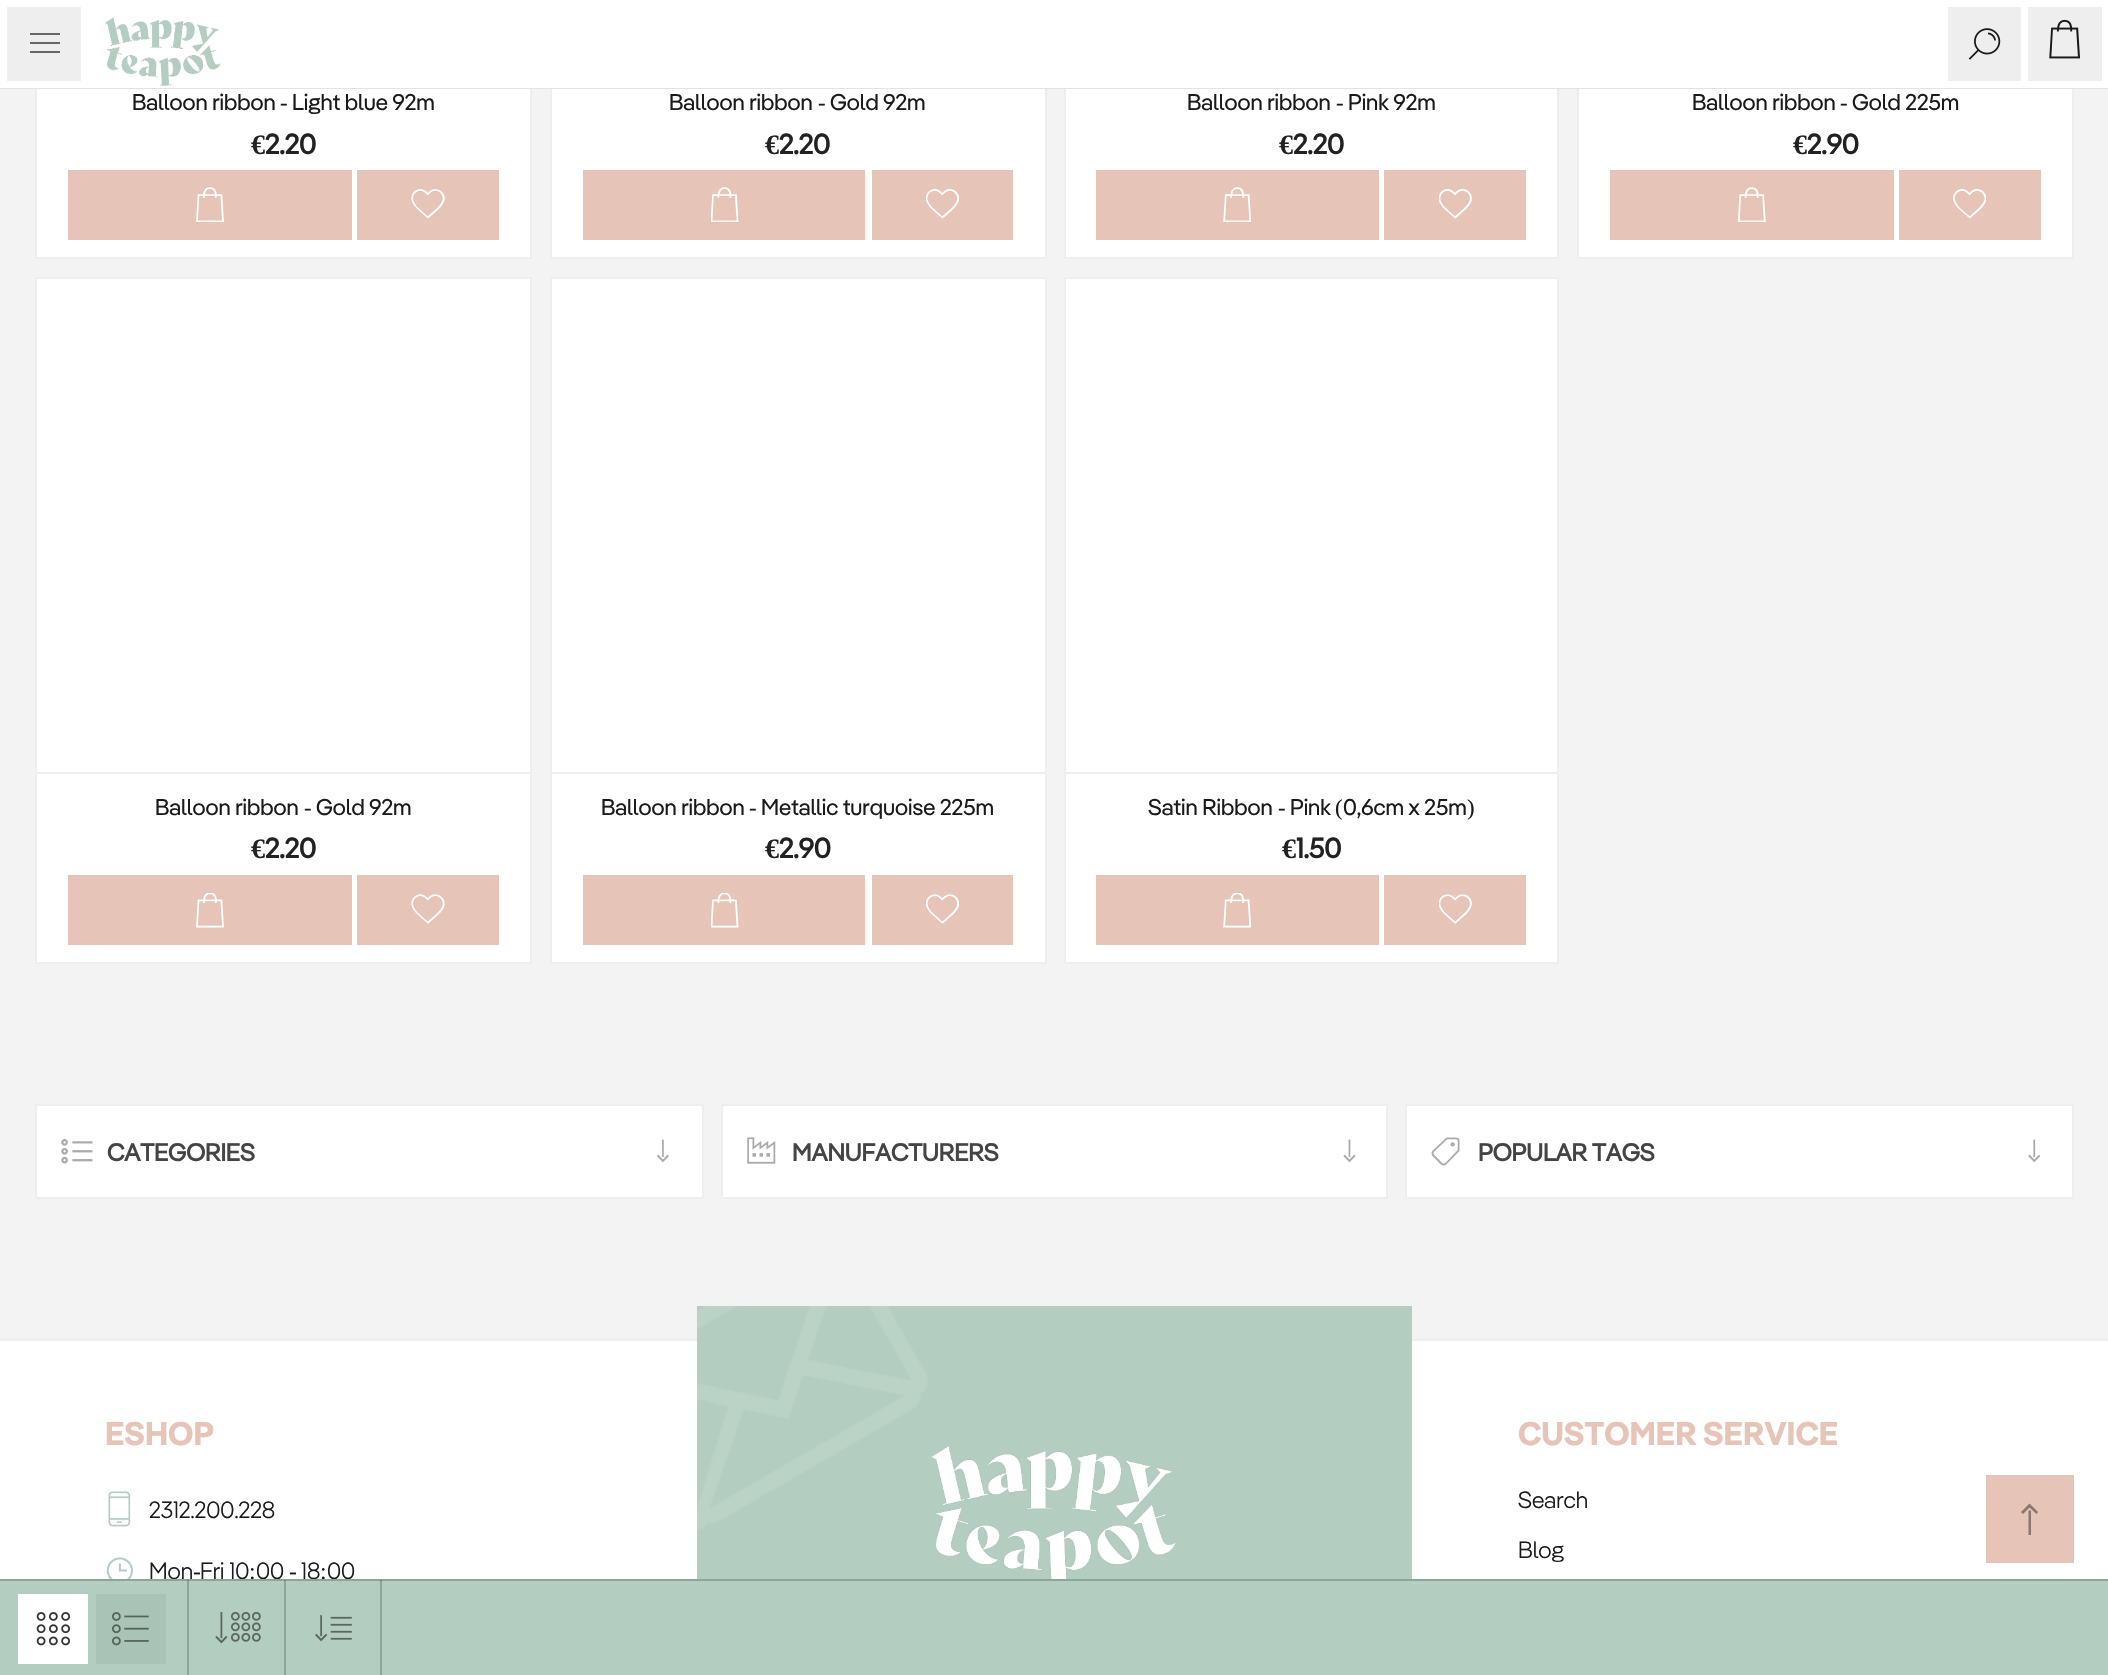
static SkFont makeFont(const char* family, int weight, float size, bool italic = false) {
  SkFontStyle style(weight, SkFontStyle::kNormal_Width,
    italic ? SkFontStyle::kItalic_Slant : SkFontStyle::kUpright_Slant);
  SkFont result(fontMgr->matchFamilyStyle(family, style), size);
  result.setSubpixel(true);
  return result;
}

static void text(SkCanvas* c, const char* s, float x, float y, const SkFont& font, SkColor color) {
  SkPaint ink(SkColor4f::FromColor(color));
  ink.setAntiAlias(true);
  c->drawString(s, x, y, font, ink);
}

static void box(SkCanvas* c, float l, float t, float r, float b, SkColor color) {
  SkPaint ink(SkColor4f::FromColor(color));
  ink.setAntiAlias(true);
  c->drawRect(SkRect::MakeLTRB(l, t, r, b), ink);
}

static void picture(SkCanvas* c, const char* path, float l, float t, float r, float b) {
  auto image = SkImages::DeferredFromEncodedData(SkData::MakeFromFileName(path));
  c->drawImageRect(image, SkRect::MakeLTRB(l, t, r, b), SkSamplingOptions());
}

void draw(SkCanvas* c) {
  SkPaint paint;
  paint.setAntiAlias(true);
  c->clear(0xfff3f3f3);
  box(c, 37, 89, 530, 257, 0xffffffff);
  paint.setStyle(SkPaint::kStroke_Style);
  paint.setStrokeWidth(2);
  paint.setColor(0xffeeeeee);
  c->drawRect(SkRect::MakeLTRB(36, -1, 531, 258), paint);
  box(c, 552, 89, 1045, 257, 0xffffffff);
  c->drawRect(SkRect::MakeLTRB(551, -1, 1046, 258), paint);
  box(c, 1066, 89, 1557, 257, 0xffffffff);
  c->drawRect(SkRect::MakeLTRB(1065, -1, 1558, 258), paint);
  box(c, 1579, 89, 2072, 257, 0xffffffff);
  c->drawRect(SkRect::MakeLTRB(1578, -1, 2073, 258), paint);
  paint.setStyle(SkPaint::kFill_Style);
  paint.setColor(0xffe3e3e3);
  c->drawPath(SkPathBuilder().moveTo(0, 88).lineTo(0, 89).lineTo(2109, 89).lineTo(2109, 2).lineTo(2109, 88).close().detach(), paint);
  box(c, 88, 0, 2021, 88, 0xffffffff);
  picture(c, "img_01.png", 105, 17, 221, 86);
  box(c, 1948, 7, 2021, 81, 0xffeeeeee);
  picture(c, "img_02.png", 1968, 28, 2001, 60);
  paint.setColor(0xffeeeeee);
  c->drawRect(SkRect::MakeLTRB(3.5f, 3.5f, 84.5f, 84.5f), paint);
  paint.setStyle(SkPaint::kStroke_Style);
  paint.setStrokeWidth(7);
  paint.setColor(0xffffffff);
  c->drawRect(SkRect::MakeLTRB(3.5f, 3.5f, 84.5f, 84.5f), paint);
  box(c, 30, 33, 60, 35, 0xff666666);
  box(c, 30, 42, 60, 44, 0xff666666);
  box(c, 30, 51, 60, 53, 0xff666666);
  paint.setStyle(SkPaint::kFill_Style);
  paint.setColor(0xffeeeeee);
  c->drawRect(SkRect::MakeLTRB(2024.5f, 3.5f, 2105.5f, 84.5f), paint);
  paint.setStyle(SkPaint::kStroke_Style);
  paint.setColor(0xffffffff);
  c->drawRect(SkRect::MakeLTRB(2024.5f, 3.5f, 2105.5f, 84.5f), paint);
  picture(c, "img_03.png", 2049, 19, 2080, 59);
  SkFont face1 = makeFont("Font", 400, 22.75f);
  text(c, "Balloon ribbon", 132, 110, face1, 0xff1a1a1a);
  SkFont face2 = makeFont("Liberation Serif", 400, 22.75f);
  text(c, "-", 280, 110, face2, 0xff1a1a1a);
  text(c, "Light blue 92m", 292, 110, face1, 0xff1a1a1a);
  SkFont face3 = makeFont("Liberation Serif", 700, 28);
  text(c, "€", 251, 154, face3, 0xff222222);
  SkFont face4 = makeFont("Font", 700, 28);
  text(c, "2.20", 265, 154, face4, 0xff222222);
  box(c, 68, 170, 352, 240, 0xffe6c4b7);
  picture(c, "img_04.png", 196, 187, 224, 222);
  box(c, 357, 170, 499, 240, 0xffe6c4b7);
  picture(c, "img_05.png", 411, 189, 445, 219);
  text(c, "Balloon ribbon", 669, 110, face1, 0xff1a1a1a);
  text(c, "-", 818, 110, face2, 0xff1a1a1a);
  text(c, "Gold 92m", 830, 110, face1, 0xff1a1a1a);
  text(c, "€", 765, 154, face3, 0xff222222);
  text(c, "2.20", 779, 154, face4, 0xff222222);
  box(c, 583, 170, 865, 240, 0xffe6c4b7);
  picture(c, "img_06.png", 711, 187, 739, 222);
  box(c, 872, 170, 1013, 240, 0xffe6c4b7);
  picture(c, "img_07.png", 926, 189, 959, 219);
  text(c, "Balloon ribbon", 1187, 110, face1, 0xff1a1a1a);
  text(c, "-", 1336, 110, face2, 0xff1a1a1a);
  text(c, "Pink 92m", 1348, 110, face1, 0xff1a1a1a);
  text(c, "€", 1279, 154, face3, 0xff222222);
  text(c, "2.20", 1293, 154, face4, 0xff222222);
  box(c, 1096, 170, 1379, 240, 0xffe6c4b7);
  picture(c, "img_08.png", 1223, 187, 1251, 222);
  box(c, 1384, 170, 1526, 240, 0xffe6c4b7);
  picture(c, "img_09.png", 1439, 189, 1472, 219);
  text(c, "Balloon ribbon", 1692, 110, face1, 0xff1a1a1a);
  text(c, "-", 1840, 110, face2, 0xff1a1a1a);
  text(c, "Gold 225m", 1852, 110, face1, 0xff1a1a1a);
  text(c, "€", 1793, 154, face3, 0xff222222);
  text(c, "2.90", 1807, 154, face4, 0xff222222);
  box(c, 1610, 170, 1894, 240, 0xffe6c4b7);
  picture(c, "img_10.png", 1738, 187, 1766, 222);
  box(c, 1899, 170, 2041, 240, 0xffe6c4b7);
  picture(c, "img_11.png", 1953, 189, 1986, 219);
  paint.setStyle(SkPaint::kFill_Style);
  c->drawRect(SkRect::MakeLTRB(36, 278, 531, 963), paint);
  paint.setStyle(SkPaint::kStroke_Style);
  paint.setStrokeWidth(2);
  paint.setColor(0xffeeeeee);
  c->drawRect(SkRect::MakeLTRB(36, 278, 531, 963), paint);
  box(c, 37, 772, 530, 774, 0xffeeeeee);
  text(c, "Balloon ribbon", 155, 815, face1, 0xff1a1a1a);
  text(c, "-", 304, 815, face2, 0xff1a1a1a);
  text(c, "Gold 92m", 316, 815, face1, 0xff1a1a1a);
  text(c, "€", 251, 858, face3, 0xff222222);
  text(c, "2.20", 265, 858, face4, 0xff222222);
  box(c, 68, 875, 352, 945, 0xffe6c4b7);
  picture(c, "img_12.png", 196, 893, 224, 928);
  box(c, 357, 875, 499, 945, 0xffe6c4b7);
  picture(c, "img_13.png", 411, 894, 445, 924);
  paint.setStyle(SkPaint::kFill_Style);
  paint.setColor(0xffffffff);
  c->drawRect(SkRect::MakeLTRB(551, 278, 1046, 963), paint);
  paint.setStyle(SkPaint::kStroke_Style);
  paint.setColor(0xffeeeeee);
  c->drawRect(SkRect::MakeLTRB(551, 278, 1046, 963), paint);
  box(c, 551, 772, 1045, 774, 0xffeeeeee);
  text(c, "Balloon ribbon", 601, 815, face1, 0xff1a1a1a);
  text(c, "-", 749, 815, face2, 0xff1a1a1a);
  text(c, "Metallic turquoise 225m", 761, 815, face1, 0xff1a1a1a);
  text(c, "€", 765, 858, face3, 0xff222222);
  text(c, "2.90", 779, 858, face4, 0xff222222);
  box(c, 583, 875, 865, 945, 0xffe6c4b7);
  picture(c, "img_14.png", 711, 893, 739, 928);
  box(c, 872, 875, 1013, 945, 0xffe6c4b7);
  picture(c, "img_15.png", 926, 894, 959, 924);
  paint.setStyle(SkPaint::kFill_Style);
  paint.setColor(0xffffffff);
  c->drawRect(SkRect::MakeLTRB(1065, 278, 1558, 963), paint);
  paint.setStyle(SkPaint::kStroke_Style);
  paint.setColor(0xffeeeeee);
  c->drawRect(SkRect::MakeLTRB(1065, 278, 1558, 963), paint);
  box(c, 1066, 772, 1558, 774, 0xffeeeeee);
  text(c, "Satin Ribbon", 1148, 815, face1, 0xff1a1a1a);
  text(c, "-", 1278, 815, face2, 0xff1a1a1a);
  text(c, "Pink", 1290, 815, face1, 0xff1a1a1a);
  text(c, "(", 1335, 815, face2, 0xff1a1a1a);
  text(c, "0,6cm x 25m", 1343, 815, face1, 0xff1a1a1a);
  text(c, ")", 1467, 815, face2, 0xff1a1a1a);
  text(c, "€", 1282, 858, face3, 0xff222222);
  text(c, "1.50", 1296, 858, face4, 0xff222222);
  box(c, 1096, 875, 1379, 945, 0xffe6c4b7);
  picture(c, "img_16.png", 1223, 893, 1251, 928);
  box(c, 1384, 875, 1526, 945, 0xffe6c4b7);
  picture(c, "img_17.png", 1439, 894, 1472, 924);
  box(c, 0, 1581, 2108, 1675, 0xffb3cdc1);
  box(c, 187, 1580, 189, 1675, 0xff8fa49a);
  box(c, 0, 1341, 2108, 1579, 0xffffffff);
  SkFont face5 = makeFont("Font", 300, 23.5f);
  text(c, "Mon", 149, 1579, face5, 0xff1a1a1a);
  text(c, "Fri 10", 200, 1579, face5, 0xff1a1a1a);
  SkFont face6 = makeFont("Liberation Serif", 400, 23.5f);
  text(c, ":", 249, 1579, face6, 0xff1a1a1a);
  text(c, "00", 256, 1579, face5, 0xff1a1a1a);
  text(c, "18", 301, 1579, face5, 0xff1a1a1a);
  text(c, ":", 320, 1579, face6, 0xff1a1a1a);
  text(c, "00", 327, 1579, face5, 0xff1a1a1a);
  box(c, 0, 1579, 2108, 1581, 0xff8fa49a);
  box(c, 187, 1580, 189, 1581, 0xff72837b);
  box(c, 18, 1594, 88, 1664, 0xffffffff);
  picture(c, "img_18.png", 36, 1612, 70, 1646);
  box(c, 96, 1594, 166, 1664, 0xffaac3b7);
  picture(c, "img_19.png", 112, 1612, 149, 1646);
  picture(c, "img_20.png", 215, 1612, 261, 1644);
  box(c, 284, 1580, 286, 1675, 0x33000000);
  picture(c, "img_21.png", 315, 1615, 352, 1642);
  box(c, 380, 1580, 382, 1675, 0x33000000);
  box(c, 37, 1106, 702, 1197, 0xffffffff);
  box(c, 35, 1104, 704, 1106, 0xffeeeeee);
  box(c, 702, 1104, 704, 1199, 0xffeeeeee);
  box(c, 35, 1104, 37, 1199, 0xffeeeeee);
  box(c, 37, 1197, 702, 1199, 0xffeeeeee);
  picture(c, "img_22.png", 61, 1139, 93, 1164);
  SkFont face7 = makeFont("Font", 700, 24.5f);
  text(c, "CATEGORIES", 107, 1161, face7, 0xff444444);
  picture(c, "img_23.png", 657, 1139, 669, 1163);
  box(c, 723, 1106, 1386, 1197, 0xffffffff);
  box(c, 721, 1104, 1388, 1106, 0xffeeeeee);
  box(c, 1386, 1104, 1388, 1199, 0xffeeeeee);
  box(c, 721, 1104, 723, 1199, 0xffeeeeee);
  box(c, 723, 1197, 1386, 1199, 0xffeeeeee);
  picture(c, "img_24.png", 747, 1137, 776, 1164);
  text(c, "MANUFACTURERS", 792, 1161, face7, 0xff444444);
  picture(c, "img_25.png", 1343, 1139, 1356, 1163);
  box(c, 1407, 1106, 2072, 1197, 0xffffffff);
  box(c, 1405, 1104, 2074, 1106, 0xffeeeeee);
  box(c, 2072, 1104, 2074, 1199, 0xffeeeeee);
  box(c, 1405, 1104, 1407, 1199, 0xffeeeeee);
  box(c, 1407, 1197, 2072, 1199, 0xffeeeeee);
  picture(c, "img_26.png", 1431, 1137, 1460, 1166);
  text(c, "POPULAR TAGS", 1478, 1161, face7, 0xff444444);
  picture(c, "img_27.png", 2028, 1139, 2041, 1163);
  box(c, 0, 1339, 2108, 1341, 0xffeeeeee);
  SkFont face8 = makeFont("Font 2", 700, 32.75f);
  text(c, "ESHOP", 105, 1445, face8, 0xffe6c4b7);
  picture(c, "img_28.png", 108, 1491, 131, 1527);
  text(c, "2312.200.228", 149, 1518, face5, 0xff1a1a1a);
  picture(c, "img_29.png", 106, 1557, 133, 1579);
  text(c, "-", 193, 1579, face6, 0xff1a1a1a);
  text(c, "-", 289, 1579, face6, 0xff1a1a1a);
  box(c, 697, 1306, 1412, 1579, 0xffb3cdc1);
  picture(c, "img_30.png", 697, 1306, 928, 1530);
  picture(c, "img_31.png", 931, 1446, 1176, 1579);
  text(c, "CUSTOMER SERVICE", 1518, 1445, face8, 0xffe6c4b7);
  text(c, "Search", 1518, 1508, face5, 0xff1a1a1a);
  text(c, "Blog", 1518, 1558, face5, 0xff1a1a1a);
  box(c, 1986, 1475, 2074, 1563, 0xffe6c4b7);
  paint.setStyle(SkPaint::kFill_Style);
  paint.setColor(0xff8a766e);
  c->drawPath(SkPathBuilder().moveTo(2028.5f, 1510.5f).lineTo(2031, 1510.5f).lineTo(2031, 1535).lineTo(2028.5f, 1535).close().moveTo(2021, 1512).lineTo(2023, 1514).lineTo(2029.5f, 1507.5f).lineTo(2036.5f, 1514).lineTo(2038, 1512).lineTo(2029.5f, 1503.5f).close().detach(), paint);
}
